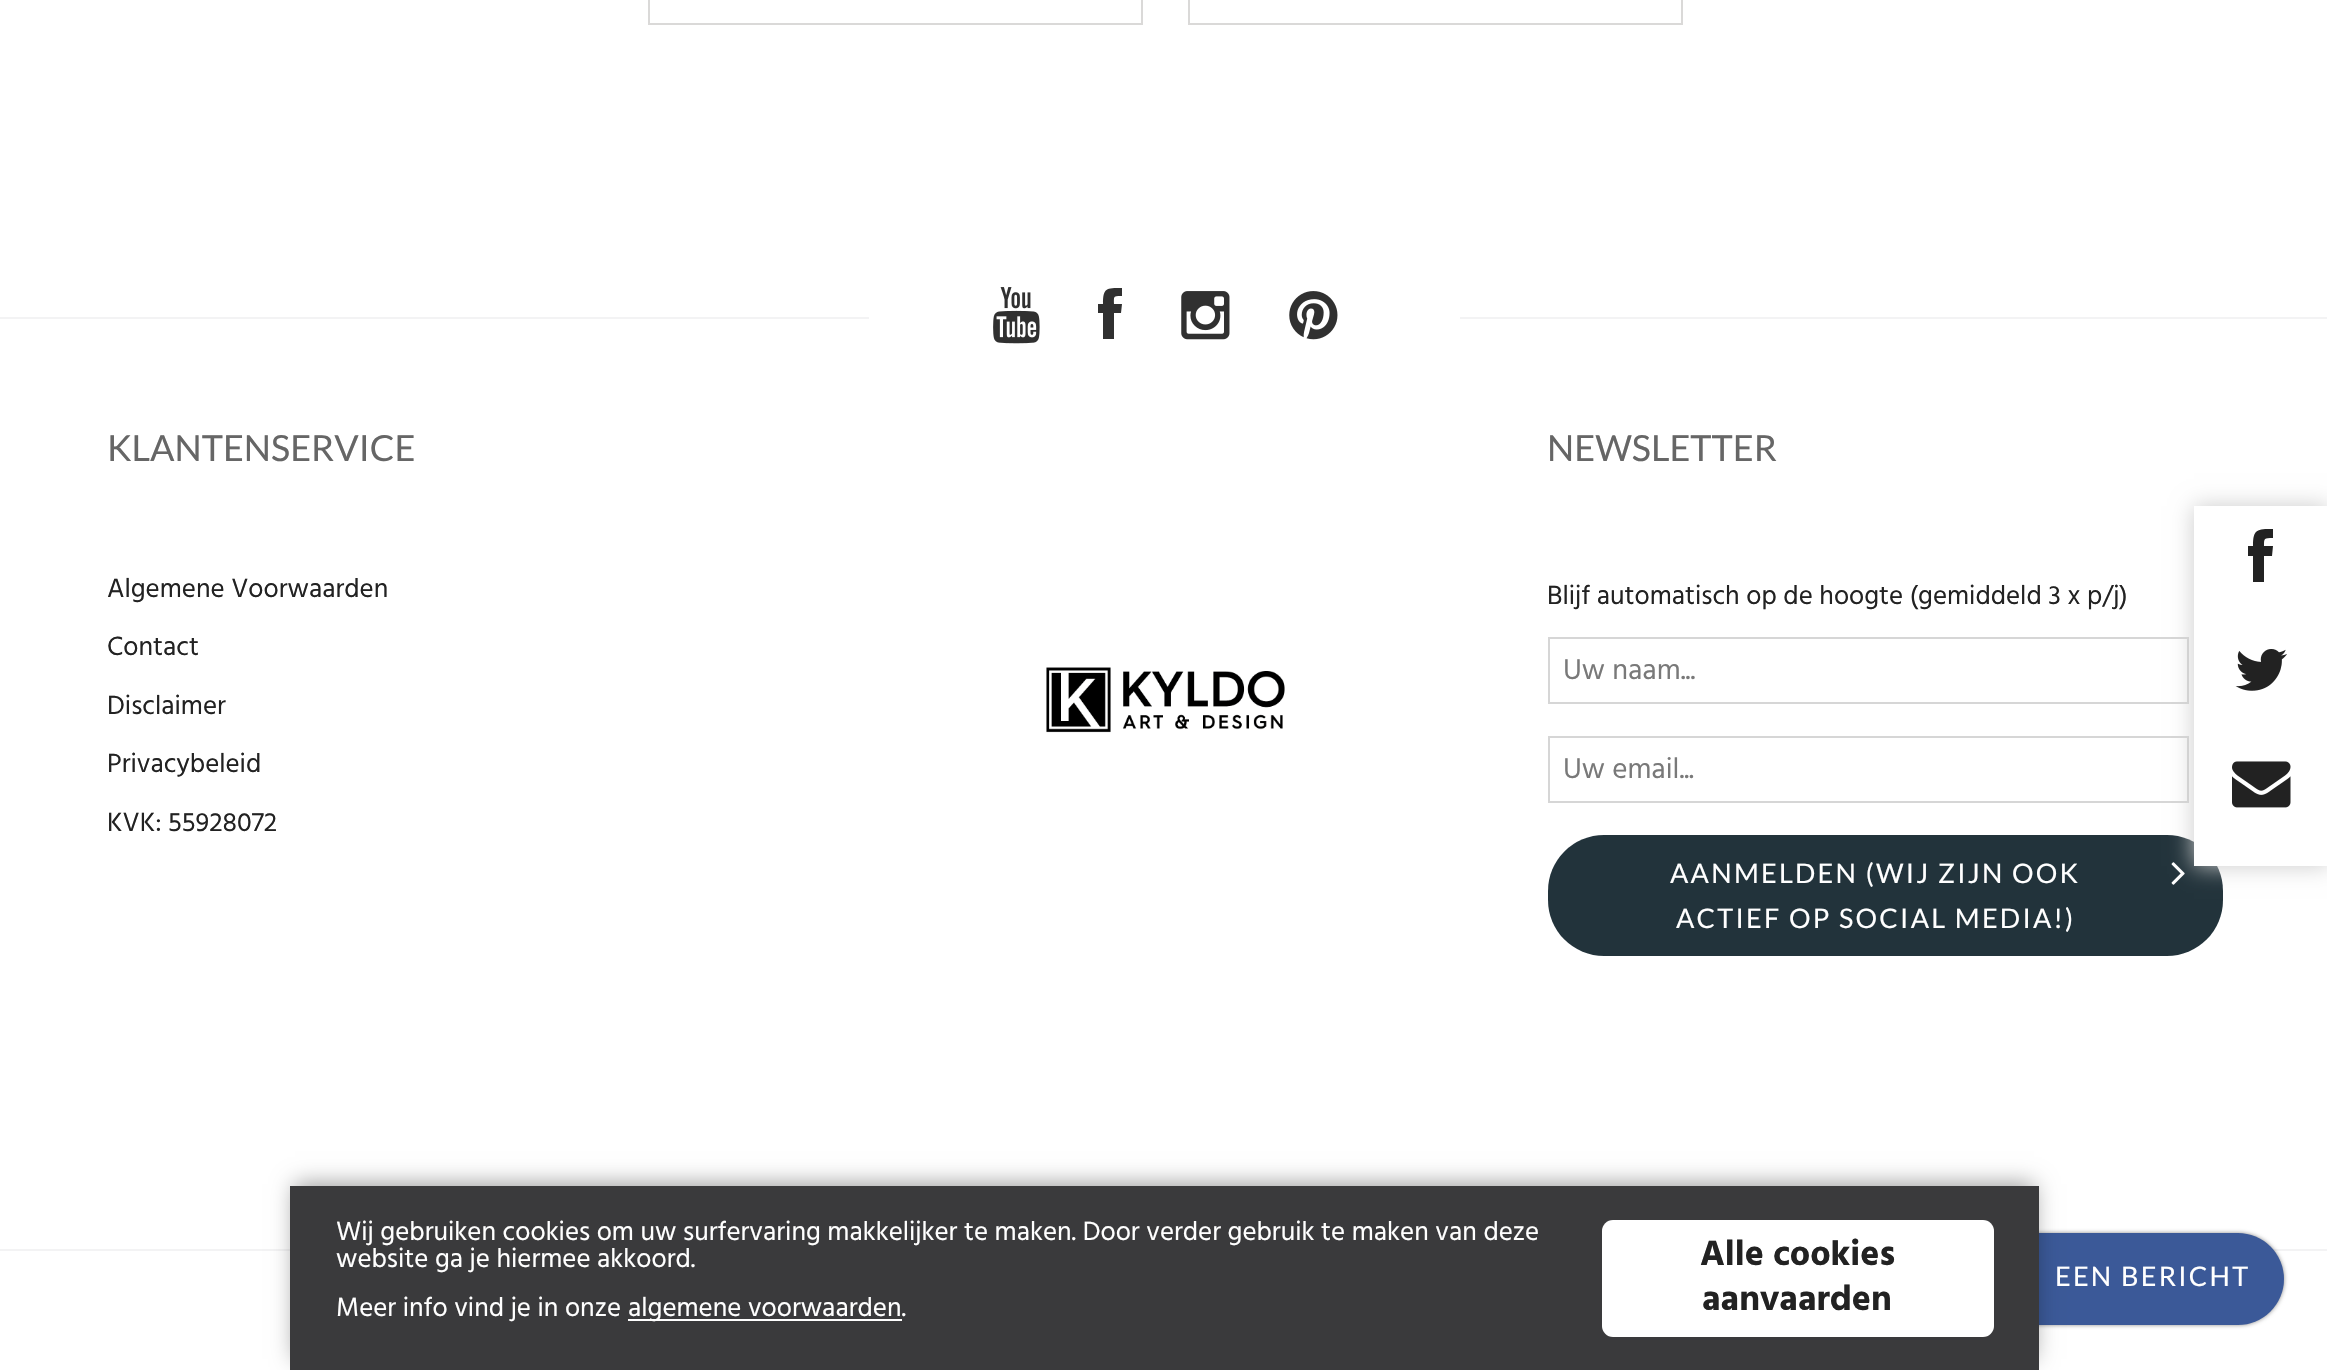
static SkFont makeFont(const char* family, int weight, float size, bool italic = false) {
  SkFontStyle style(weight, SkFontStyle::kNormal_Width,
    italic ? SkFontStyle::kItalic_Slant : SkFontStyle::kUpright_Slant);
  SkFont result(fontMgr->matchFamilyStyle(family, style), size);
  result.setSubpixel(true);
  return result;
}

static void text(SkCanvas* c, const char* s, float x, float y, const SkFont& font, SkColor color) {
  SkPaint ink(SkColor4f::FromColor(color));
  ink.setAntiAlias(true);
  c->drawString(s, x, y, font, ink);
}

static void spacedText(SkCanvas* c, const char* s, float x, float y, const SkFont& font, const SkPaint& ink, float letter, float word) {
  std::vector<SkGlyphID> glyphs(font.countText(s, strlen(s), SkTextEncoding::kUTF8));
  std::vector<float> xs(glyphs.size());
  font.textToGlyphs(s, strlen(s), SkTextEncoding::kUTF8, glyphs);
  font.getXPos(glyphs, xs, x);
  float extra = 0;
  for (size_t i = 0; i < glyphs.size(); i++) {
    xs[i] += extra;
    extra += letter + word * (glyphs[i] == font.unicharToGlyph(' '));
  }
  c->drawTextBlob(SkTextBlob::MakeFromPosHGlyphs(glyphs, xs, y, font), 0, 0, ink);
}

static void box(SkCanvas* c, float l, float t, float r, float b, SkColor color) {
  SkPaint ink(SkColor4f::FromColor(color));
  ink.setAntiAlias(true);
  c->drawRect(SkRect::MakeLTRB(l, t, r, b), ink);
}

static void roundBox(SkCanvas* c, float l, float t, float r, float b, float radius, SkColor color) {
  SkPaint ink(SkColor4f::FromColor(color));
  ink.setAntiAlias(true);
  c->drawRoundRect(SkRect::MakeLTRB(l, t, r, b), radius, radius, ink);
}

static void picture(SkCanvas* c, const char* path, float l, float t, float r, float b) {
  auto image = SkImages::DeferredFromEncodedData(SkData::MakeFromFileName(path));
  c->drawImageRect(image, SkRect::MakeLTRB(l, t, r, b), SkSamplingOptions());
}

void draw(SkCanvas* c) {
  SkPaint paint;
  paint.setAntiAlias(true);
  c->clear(0xffffffff);
  paint.setStyle(SkPaint::kStroke_Style);
  paint.setStrokeWidth(2);
  paint.setColor(0xffdad9d8);
  c->drawRect(SkRect::MakeLTRB(649, -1, 1142, 24), paint);
  c->drawRect(SkRect::MakeLTRB(1189, -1, 1682, 24), paint);
  box(c, 0, 317, 869, 319, 0xfff3f3f4);
  picture(c, "img_01.png", 993, 287, 1040, 344);
  paint.setStyle(SkPaint::kFill_Style);
  paint.setColor(0xff303030);
  c->drawPath(SkPathBuilder().moveTo(1114, 304).lineTo(1122, 304).lineTo(1121, 313).lineTo(1114, 313).lineTo(1114, 339).lineTo(1103, 339).lineTo(1103, 313).lineTo(1098, 313).lineTo(1098, 304).lineTo(1103, 304).cubicTo(1103, 288, 1106, 288, 1122, 288).lineTo(1122, 296).cubicTo(1113, 296, 1114, 296, 1114, 304).close().detach(), paint);
  picture(c, "img_02.png", 1181, 291, 1230, 340);
  picture(c, "img_03.png", 1289, 291, 1338, 340);
  box(c, 1460, 317, 2327, 319, 0xfff3f3f4);
  SkFont face1 = makeFont("Lato", 400, 36);
  text(c, "KLANTENSERVICE", 107, 461, face1, 0xff666666);
  SkFont face2 = makeFont("Hind", 400, 27);
  text(c, "Algemene Voorwaarden", 107, 597, face2, 0xff222222);
  text(c, "Contact", 107, 655, face2, 0xff222222);
  text(c, "Disclaimer", 107, 714, face2, 0xff222222);
  text(c, "Privacybeleid", 107, 772, face2, 0xff222222);
  text(c, "KVK: 55928072", 107, 831, face2, 0xff222222);
  picture(c, "img_04.png", 1046, 667, 1285, 733);
  text(c, "NEWSLETTER", 1547, 461, face1, 0xff666666);
  text(c, "Blijf automatisch op de hoogte (gemiddeld 3 x p/j)", 1547, 604, face2, 0xff222222);
  paint.setStyle(SkPaint::kStroke_Style);
  paint.setColor(0xffd6d6d6);
  c->drawRect(SkRect::MakeLTRB(1549, 638, 2188, 703), paint);
  SkFont face3 = makeFont("Hind", 400, 29.25f);
  text(c, "Uw naam...", 1563, 679, face3, 0xff797979);
  c->drawRect(SkRect::MakeLTRB(1549, 737, 2188, 802), paint);
  text(c, "Uw email...", 1563, 778, face3, 0xff797979);
  roundBox(c, 1548, 835, 2223, 956, 56, 0xff22333b);
  SkFont face4 = makeFont("Lato", 400, 27);
  paint.setStyle(SkPaint::kFill_Style);
  paint.setColor(0xffffffff);
  spacedText(c, "AANMELDEN (WIJ ZIJN OOK", 1670, 883, face4, paint, 2.25f, 0);
  picture(c, "img_05.png", 2171, 862, 2185, 885);
  spacedText(c, "ACTIEF OP SOCIAL MEDIA!)", 1676, 928, face4, paint, 2.25f, 0);
  box(c, 0, 1249, 2327, 1251, 0xfff3f3f4);
  paint.setColor(0x73000000);
  paint.setMaskFilter(SkMaskFilter::MakeBlur(kNormal_SkBlurStyle, 2));
  c->drawRoundRect(SkRect::MakeLTRB(1742, 1233, 2284, 1325), 46, 46, paint);
  paint.setMaskFilter(nullptr);
  roundBox(c, 1742, 1233, 2284, 1325, 46, 0xff3b5998);
  paint.setColor(0x66000000);
  paint.setMaskFilter(SkMaskFilter::MakeBlur(kNormal_SkBlurStyle, 11));
  c->drawRect(SkRect::MakeLTRB(295, 1184, 2034, 1359), paint);
  paint.setMaskFilter(nullptr);
  box(c, 290, 1186, 2039, 1370, 0xff3a3a3c);
  text(c, "Wij gebruiken cookies om uw surfervaring makkelijker te maken. Door verder gebruik te maken van deze", 336, 1240, face2, 0xffffffff);
  text(c, "website ga je hiermee akkoord.", 336, 1267, face2, 0xffffffff);
  text(c, "Meer info vind je in onze", 336, 1316, face2, 0xffffffff);
  box(c, 628, 1319, 902, 1321, 0xffffffff);
  text(c, "algemene voorwaarden.", 628, 1316, face2, 0xffffffff);
  roundBox(c, 1602, 1220, 1994, 1337, 11, 0xffffffff);
  SkFont face5 = makeFont("Hind", 700, 36);
  text(c, "Alle cookies", 1700, 1265, face5, 0xff222222);
  text(c, "aanvaarden", 1702, 1310, face5, 0xff222222);
  paint.setColor(0xffcccccc);
  paint.setMaskFilter(SkMaskFilter::MakeBlur(kNormal_SkBlurStyle, 11));
  c->drawRect(SkRect::MakeLTRB(2194, 506, 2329, 866), paint);
  paint.setMaskFilter(nullptr);
  box(c, 2194, 506, 2327, 866, 0xffffffff);
  paint.setColor(0xff222222);
  c->drawPath(SkPathBuilder().moveTo(2264, 546).lineTo(2273, 546).lineTo(2272, 556).lineTo(2264, 556).lineTo(2264, 582).lineTo(2253, 582).lineTo(2253, 556).lineTo(2248, 556).lineTo(2248, 546).lineTo(2253, 546).cubicTo(2253, 529, 2257, 529, 2273, 529).lineTo(2273, 538).cubicTo(2264, 538, 2264, 538, 2264, 546).close().detach(), paint);
  picture(c, "img_06.png", 2235, 649, 2287, 691);
  picture(c, "img_07.png", 2232, 761, 2291, 808);
  paint.setColor(0xffffffff);
  spacedText(c, "EEN BERICHT", 2055, 1286, face4, paint, 2.25f, 0);
}
